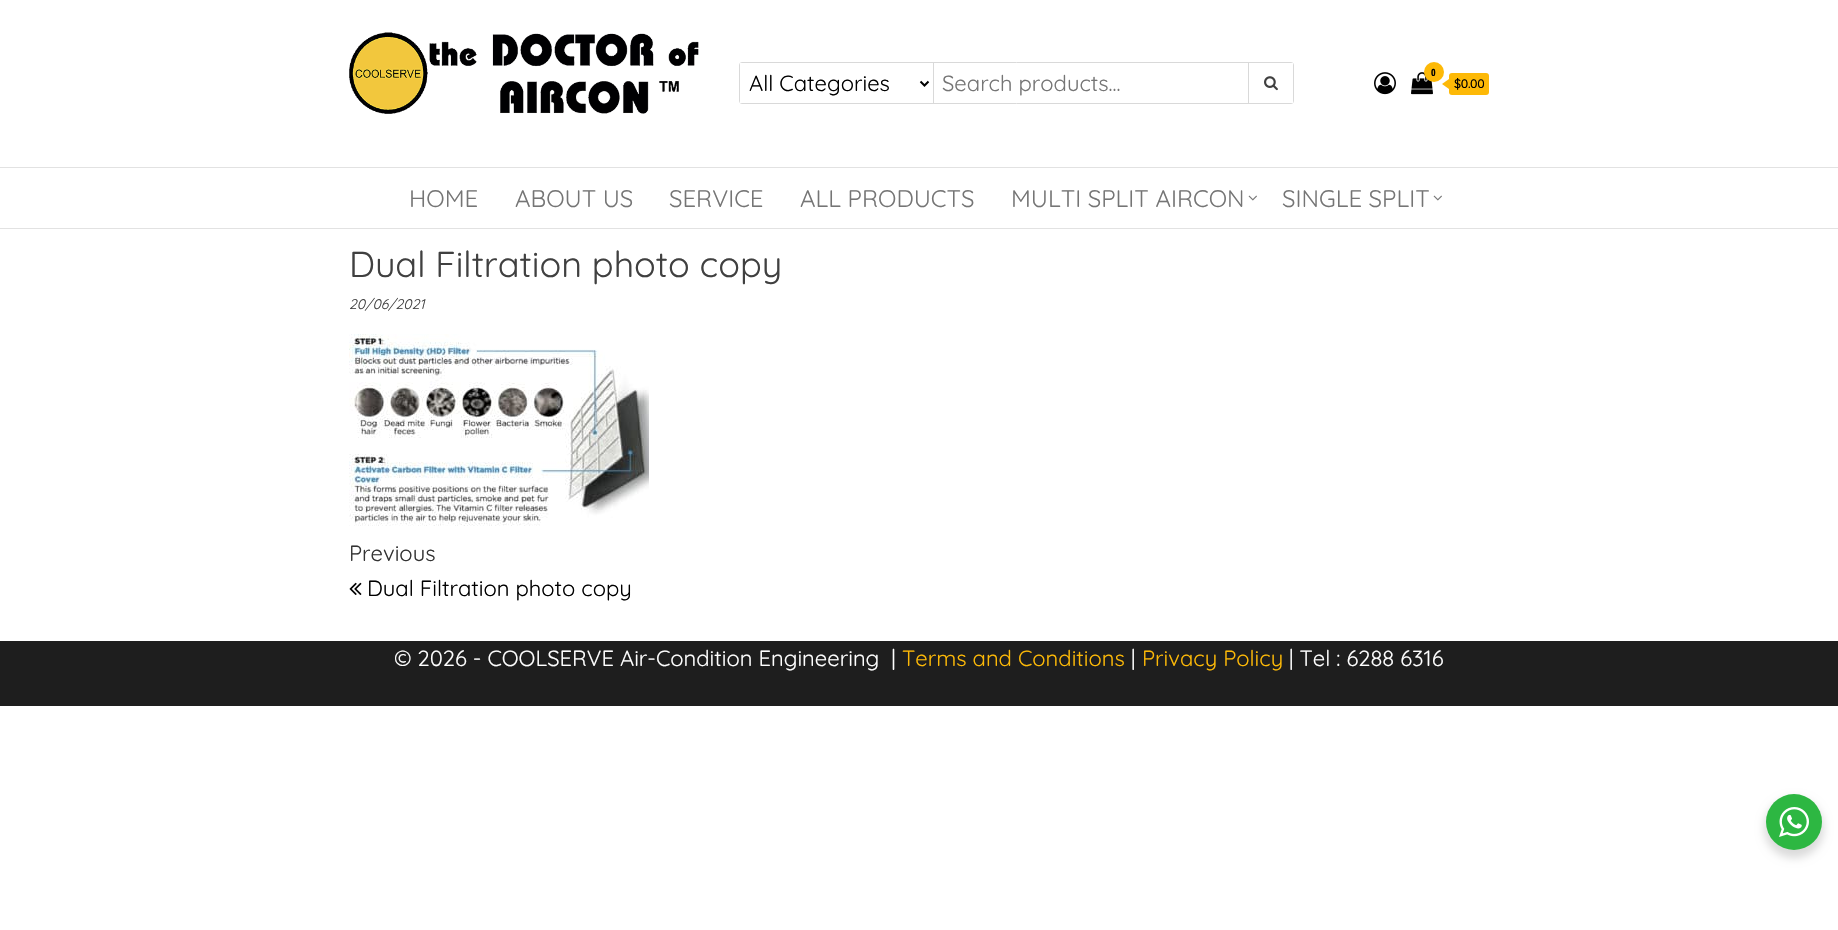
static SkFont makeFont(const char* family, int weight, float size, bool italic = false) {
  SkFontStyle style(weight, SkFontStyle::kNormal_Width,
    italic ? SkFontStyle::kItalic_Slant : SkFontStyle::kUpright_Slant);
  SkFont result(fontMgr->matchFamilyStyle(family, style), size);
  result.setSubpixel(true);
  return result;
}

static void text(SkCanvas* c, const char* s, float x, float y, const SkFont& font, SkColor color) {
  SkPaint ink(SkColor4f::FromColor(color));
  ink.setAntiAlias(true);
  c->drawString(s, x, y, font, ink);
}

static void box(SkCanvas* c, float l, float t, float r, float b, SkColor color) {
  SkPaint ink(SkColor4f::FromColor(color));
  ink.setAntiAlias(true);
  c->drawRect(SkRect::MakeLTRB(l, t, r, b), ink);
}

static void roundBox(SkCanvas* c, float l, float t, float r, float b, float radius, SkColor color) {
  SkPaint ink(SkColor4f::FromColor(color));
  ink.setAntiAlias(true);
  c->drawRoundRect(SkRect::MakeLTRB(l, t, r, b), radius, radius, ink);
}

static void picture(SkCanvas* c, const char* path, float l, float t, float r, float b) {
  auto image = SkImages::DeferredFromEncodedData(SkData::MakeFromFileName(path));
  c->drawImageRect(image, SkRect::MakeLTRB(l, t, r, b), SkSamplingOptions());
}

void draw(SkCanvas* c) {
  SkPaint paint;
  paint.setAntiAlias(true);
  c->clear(0xffffffff);
  picture(c, "img_01.png", 349, 32, 699, 114);
  paint.setStyle(SkPaint::kStroke_Style);
  paint.setStrokeWidth(1);
  paint.setColor(0xffd9d9d9);
  c->drawRoundRect(SkRect::MakeLTRB(739.5f, 62.5f, 1293.5f, 103.5f), 2.5f, 2.5f, paint);
  box(c, 740, 63, 742, 103, 0xffffffff);
  box(c, 933, 63, 934, 103, 0xffd9d9d9);
  paint.setStrokeWidth(2);
  paint.setColor(0xff000000);
  c->drawPath(SkPathBuilder().moveTo(920.5f, 81.5f).lineTo(924.5f, 85.5f).lineTo(928.5f, 81.5f).detach(), paint);
  SkFont face1 = makeFont("Quicksand", 400, 22);
  text(c, "All Categories", 749, 91, face1, 0xff000000);
  box(c, 1291, 63, 1293, 103, 0xffffffff);
  text(c, "Search products...", 942, 91, face1, 0xff757575);
  box(c, 1248, 63, 1249, 103, 0xffd9d9d9);
  picture(c, "img_02.png", 1264, 76, 1278, 91);
  picture(c, "img_03.png", 1374, 72, 1396, 95);
  picture(c, "img_04.png", 1411, 72, 1433, 95);
  paint.setStyle(SkPaint::kFill_Style);
  paint.setColor(0xfffdb907);
  c->drawCircle(1434, 72, 10, paint);
  SkFont face2 = makeFont("Open Sans Condensed", 700, 10);
  text(c, "0", 1431, 76, face2, 0xff000000);
  roundBox(c, 1449, 73, 1489, 95, 3, 0xfffdb907);
  c->drawPath(SkPathBuilder().moveTo(1449, 79).lineTo(1449, 89).lineTo(1442, 84).close().detach(), paint);
  SkFont face3 = makeFont("Quicksand", 700, 12);
  text(c, "$0.00", 1454, 88, face3, 0xff000000);
  box(c, 0, 167, 1838, 168, 0xffe2e2e2);
  box(c, 0, 228, 1838, 229, 0xffe2e2e2);
  SkFont face4 = makeFont("Quicksand", 400, 24);
  text(c, "HOME", 409, 207, face4, 0xff757575);
  text(c, "ABOUT US", 515, 207, face4, 0xff757575);
  text(c, "SERVICE", 669, 207, face4, 0xff757575);
  text(c, "ALL PRODUCTS", 800, 207, face4, 0xff757575);
  text(c, "MULTI SPLIT AIRCON", 1011, 207, face4, 0xff757575);
  picture(c, "img_05.png", 1248, 195, 1257, 201);
  text(c, "SINGLE SPLIT", 1282, 207, face4, 0xff757575);
  picture(c, "img_05.png", 1433, 195, 1442, 201);
  SkFont face5 = makeFont("Quicksand", 400, 36);
  text(c, "Dual Filtration photo copy", 349, 277, face5, 0xff404040);
  SkFont face6 = makeFont("Quicksand", 400, 14, true);
  text(c, "20/06/2021", 349, 309, face6, 0xff404040);
  picture(c, "img_06.png", 349, 334, 649, 526);
  text(c, "Previous", 349, 561, face1, 0xff333333);
  picture(c, "img_07.png", 349, 582, 362, 595);
  text(c, "Dual Filtration photo copy", 367, 596, face1, 0xff000000);
  box(c, 0, 641, 1838, 706, 0xff1e1e1e);
  text(c, "© 2026 - COOLSERVE Air-Condition Engineering  |", 394, 666, face1, 0xffffffff);
  text(c, "Terms and Conditions", 902, 666, face1, 0xfffdb907);
  text(c, "|", 1131, 666, face1, 0xffffffff);
  text(c, "Privacy Policy", 1142, 666, face1, 0xfffdb907);
  text(c, "| Tel : 6288 6316", 1289, 666, face1, 0xffffffff);
  paint.setColor(0x24000000);
  paint.setMaskFilter(SkMaskFilter::MakeBlur(kNormal_SkBlurStyle, 4));
  c->drawRoundRect(SkRect::MakeLTRB(1764, 798, 1824, 858), 30, 30, paint);
  paint.setMaskFilter(nullptr);
  paint.setColor(0xff2db742);
  c->drawCircle(1794, 822, 28, paint);
  picture(c, "img_08.png", 1779, 807, 1809, 837);
}
